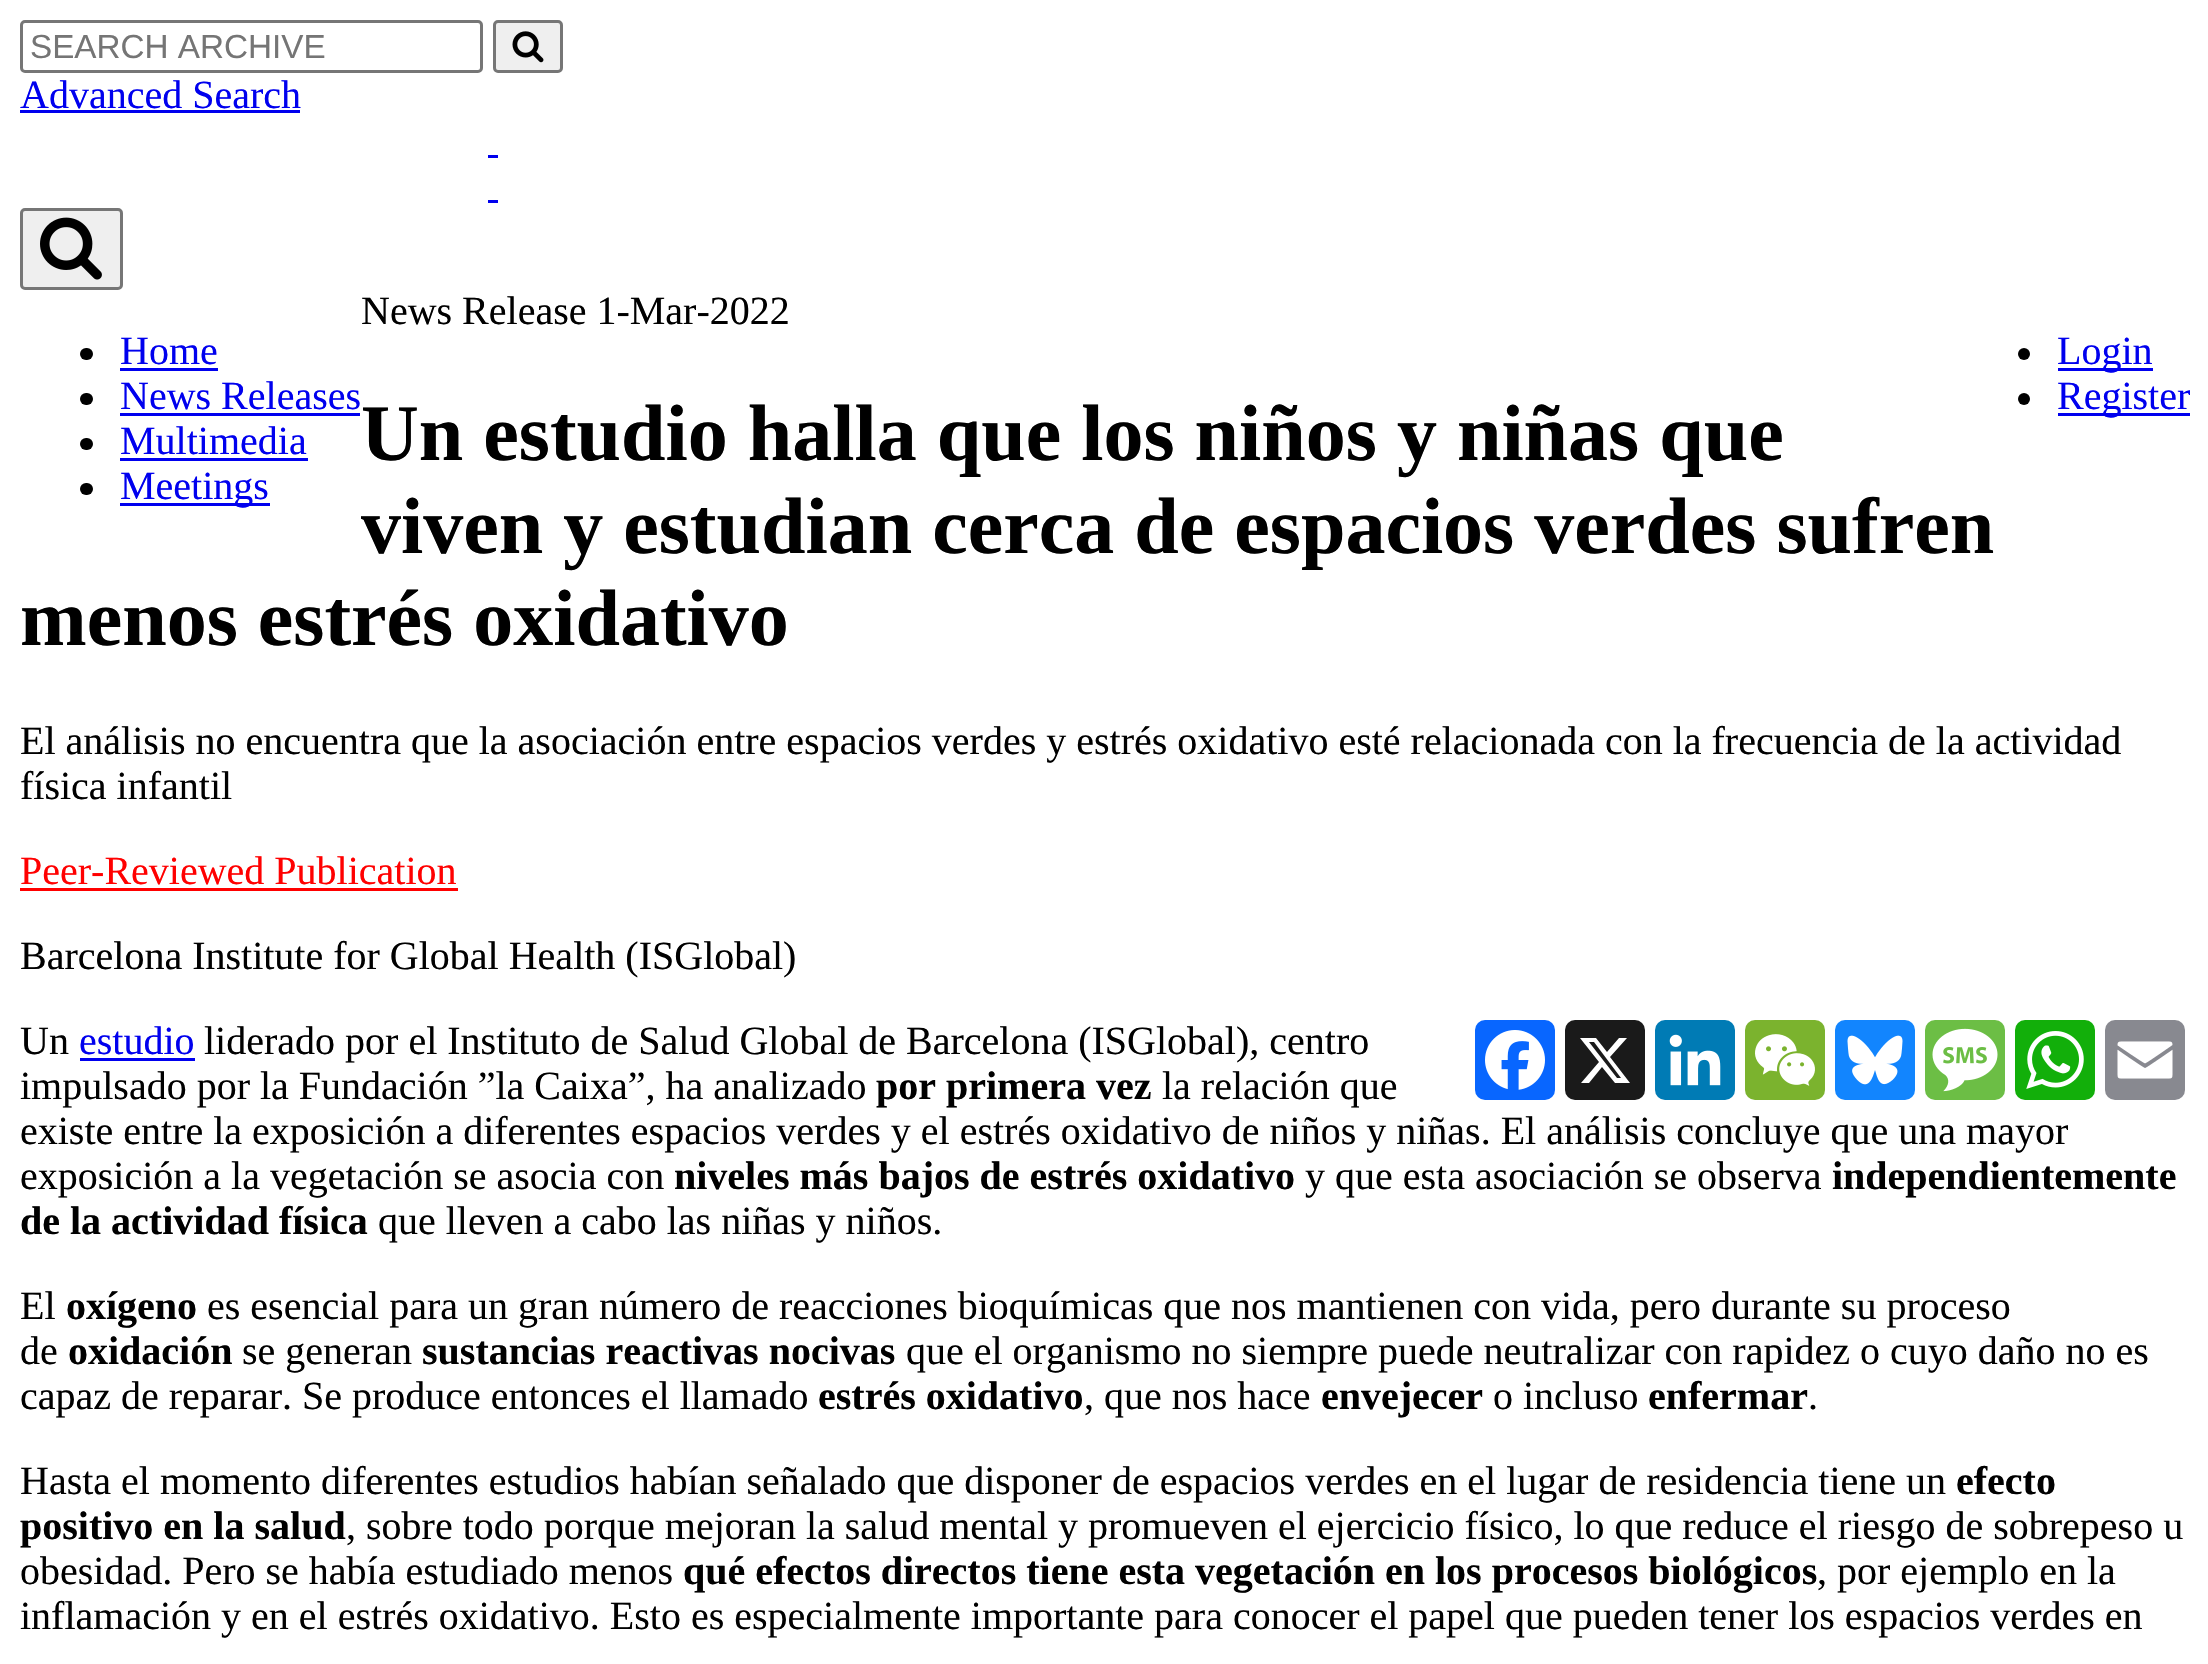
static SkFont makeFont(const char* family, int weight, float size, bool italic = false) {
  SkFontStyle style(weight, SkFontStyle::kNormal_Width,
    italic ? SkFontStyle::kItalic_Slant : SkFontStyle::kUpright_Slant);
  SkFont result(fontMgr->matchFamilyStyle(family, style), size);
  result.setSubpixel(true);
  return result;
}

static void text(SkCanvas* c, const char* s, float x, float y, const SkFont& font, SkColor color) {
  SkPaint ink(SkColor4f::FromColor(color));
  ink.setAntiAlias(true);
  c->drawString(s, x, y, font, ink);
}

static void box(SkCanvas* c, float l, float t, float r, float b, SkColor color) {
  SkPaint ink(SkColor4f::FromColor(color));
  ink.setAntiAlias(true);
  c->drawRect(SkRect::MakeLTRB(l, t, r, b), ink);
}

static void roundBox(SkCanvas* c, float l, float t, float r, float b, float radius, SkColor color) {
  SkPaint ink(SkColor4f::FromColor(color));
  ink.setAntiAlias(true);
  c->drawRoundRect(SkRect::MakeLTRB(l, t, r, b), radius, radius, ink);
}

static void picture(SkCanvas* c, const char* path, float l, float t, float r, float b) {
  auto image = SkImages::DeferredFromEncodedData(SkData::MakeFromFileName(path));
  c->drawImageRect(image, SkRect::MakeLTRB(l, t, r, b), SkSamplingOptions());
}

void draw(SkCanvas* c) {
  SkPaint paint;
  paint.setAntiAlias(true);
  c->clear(0xffffffff);
  paint.setStyle(SkPaint::kStroke_Style);
  paint.setStrokeWidth(3);
  paint.setColor(0xff767676);
  c->drawRoundRect(SkRect::MakeLTRB(21.5f, 21.5f, 481.5f, 71.5f), 3.5f, 3.5f, paint);
  SkFont face1 = makeFont("Liberation Sans", 400, 33.25f);
  text(c, "SEARCH ARCHIVE", 30, 58, face1, 0xff757575);
  paint.setStyle(SkPaint::kFill_Style);
  paint.setColor(0xffefefef);
  c->drawRoundRect(SkRect::MakeLTRB(494.5f, 21.5f, 561.5f, 71.5f), 3.5f, 3.5f, paint);
  paint.setStyle(SkPaint::kStroke_Style);
  paint.setColor(0xff767676);
  c->drawRoundRect(SkRect::MakeLTRB(494.5f, 21.5f, 561.5f, 71.5f), 3.5f, 3.5f, paint);
  picture(c, "img_01.png", 512, 31, 544, 63);
  SkFont face2 = makeFont("Liberation Serif", 400, 40);
  text(c, "Advanced Search", 20, 108, face2, 0xff0000ee);
  box(c, 20, 110, 300, 113, 0xff0000ee);
  box(c, 488, 155, 498, 158, 0xff0000ee);
  box(c, 488, 200, 498, 203, 0xff0000ee);
  paint.setStyle(SkPaint::kFill_Style);
  paint.setColor(0xffefefef);
  c->drawRoundRect(SkRect::MakeLTRB(21.5f, 209.5f, 121.5f, 288.5f), 3.5f, 3.5f, paint);
  paint.setStyle(SkPaint::kStroke_Style);
  paint.setColor(0xff767676);
  c->drawRoundRect(SkRect::MakeLTRB(21.5f, 209.5f, 121.5f, 288.5f), 3.5f, 3.5f, paint);
  picture(c, "img_02.png", 40, 217, 102, 280);
  roundBox(c, 80, 348, 93, 360, 6, 0xff000000);
  text(c, "Home", 120, 364, face2, 0xff0000ee);
  box(c, 120, 368, 218, 371, 0xff0000ee);
  roundBox(c, 80, 393, 93, 405, 6, 0xff000000);
  text(c, "News Releases", 120, 409, face2, 0xff0000ee);
  box(c, 120, 413, 360, 416, 0xff0000ee);
  roundBox(c, 80, 438, 93, 450, 6, 0xff000000);
  text(c, "Multimedia", 120, 454, face2, 0xff0000ee);
  box(c, 120, 458, 308, 461, 0xff0000ee);
  roundBox(c, 80, 483, 93, 495, 6, 0xff000000);
  box(c, 120, 503, 270, 506, 0xff0000ee);
  text(c, "Meetings", 120, 499, face2, 0xff0000ee);
  paint.setStyle(SkPaint::kFill_Style);
  paint.setColor(0xff000000);
  c->drawCircle(2024, 354, 6, paint);
  box(c, 2058, 368, 2153, 371, 0xff0000ee);
  text(c, "Login", 2057, 364, face2, 0xff0000ee);
  c->drawCircle(2024, 399, 6, paint);
  box(c, 2058, 413, 2190, 416, 0xff0000ee);
  text(c, "Register", 2057, 409, face2, 0xff0000ee);
  text(c, "News Release 1-Mar-2022", 361, 324, face2, 0xff000000);
  SkFont face3 = makeFont("Liberation Serif", 700, 80);
  text(c, "Un estudio halla que los niños y niñas que", 361, 460, face3, 0xff000000);
  text(c, "viven y estudian cerca de espacios verdes sufren", 361, 553, face3, 0xff000000);
  text(c, "menos estrés oxidativo", 20, 645, face3, 0xff000000);
  text(c, "El análisis no encuentra que la asociación entre espacios verdes y estrés oxidativo esté relacionada con la frecuencia de la actividad", 20, 754, face2, 0xff000000);
  text(c, "física infantil", 20, 799, face2, 0xff000000);
  text(c, "Peer-Reviewed Publication", 20, 884, face2, 0xffff0000);
  box(c, 20, 888, 458, 891, 0xffff0000);
  text(c, "Barcelona Institute for Global Health (ISGlobal)", 20, 969, face2, 0xff000000);
  roundBox(c, 1475, 1020, 1555, 1100, 10, 0xff0866ff);
  picture(c, "img_03.png", 1485, 1030, 1545, 1090);
  roundBox(c, 1565, 1020, 1645, 1100, 10, 0xff1a1a1a);
  paint.setColor(0xffffffff);
  c->drawPath(SkPathBuilder().moveTo(1619, 1038).lineTo(1627, 1038).lineTo(1610, 1057).lineTo(1630, 1083).lineTo(1615, 1083).lineTo(1602, 1067).lineTo(1589, 1083).lineTo(1581, 1083).lineTo(1599, 1062).lineTo(1580, 1038).lineTo(1596, 1038).lineTo(1607, 1052).close().moveTo(1617, 1078).lineTo(1621, 1078).lineTo(1594, 1042).lineTo(1589, 1042).close().detach(), paint);
  roundBox(c, 1655, 1020, 1735, 1100, 10, 0xff007bb5);
  picture(c, "img_04.png", 1669, 1034, 1721, 1086);
  roundBox(c, 1745, 1020, 1825, 1100, 10, 0xff7bb32e);
  picture(c, "img_05.png", 1755, 1034, 1815, 1086);
  roundBox(c, 1835, 1020, 1915, 1100, 10, 0xff1285fe);
  picture(c, "img_06.png", 1847, 1035, 1903, 1085);
  roundBox(c, 1925, 1020, 2005, 1100, 10, 0xff6cbe45);
  picture(c, "img_07.png", 1932, 1028, 1998, 1092);
  roundBox(c, 2015, 1020, 2095, 1100, 10, 0xff12af0a);
  picture(c, "img_08.png", 2026, 1031, 2084, 1089);
  roundBox(c, 2105, 1020, 2185, 1100, 10, 0xff888990);
  picture(c, "img_09.png", 2117, 1041, 2173, 1079);
  text(c, "Un", 20, 1054, face2, 0xff000000);
  text(c, "estudio", 79, 1054, face2, 0xff0000ee);
  box(c, 80, 1058, 195, 1061, 0xff0000ee);
  text(c, "liderado por el Instituto de Salud Global de Barcelona (ISGlobal), centro", 204, 1054, face2, 0xff000000);
  text(c, "impulsado por la Fundación ”la Caixa”, ha analizado", 20, 1099, face2, 0xff000000);
  SkFont face4 = makeFont("Liberation Serif", 700, 40);
  text(c, "por primera vez", 876, 1099, face4, 0xff000000);
  text(c, "la relación que", 1162, 1099, face2, 0xff000000);
  text(c, "existe entre la exposición a diferentes espacios verdes y el estrés oxidativo de niños y niñas. El análisis concluye que una mayor", 20, 1144, face2, 0xff000000);
  text(c, "exposición a la vegetación se asocia con", 20, 1189, face2, 0xff000000);
  text(c, "niveles más bajos de estrés oxidativo", 674, 1189, face4, 0xff000000);
  text(c, "y que esta asociación se observa", 1305, 1189, face2, 0xff000000);
  text(c, "independientemente", 1832, 1189, face4, 0xff000000);
  text(c, "de la actividad física", 20, 1234, face4, 0xff000000);
  text(c, "que lleven a cabo las niñas y niños.", 378, 1234, face2, 0xff000000);
  text(c, "El", 20, 1319, face2, 0xff000000);
  text(c, "oxígeno", 66, 1319, face4, 0xff000000);
  text(c, "es esencial para un gran número de reacciones bioquímicas que nos mantienen con vida, pero durante su proceso", 207, 1319, face2, 0xff000000);
  text(c, "de", 20, 1364, face2, 0xff000000);
  text(c, "oxidación", 68, 1364, face4, 0xff000000);
  text(c, "se generan", 242, 1364, face2, 0xff000000);
  text(c, "sustancias reactivas nocivas", 422, 1364, face4, 0xff000000);
  text(c, "que el organismo no siempre puede neutralizar con rapidez o cuyo daño no es", 906, 1364, face2, 0xff000000);
  text(c, "capaz de reparar. Se produce entonces el llamado", 20, 1409, face2, 0xff000000);
  text(c, "estrés oxidativo", 818, 1409, face4, 0xff000000);
  text(c, ", que nos hace", 1084, 1409, face2, 0xff000000);
  text(c, "envejecer", 1321, 1409, face4, 0xff000000);
  text(c, "o incluso", 1493, 1409, face2, 0xff000000);
  text(c, "enfermar", 1648, 1409, face4, 0xff000000);
  text(c, ".", 1808, 1409, face2, 0xff000000);
  text(c, "Hasta el momento diferentes estudios habían señalado que disponer de espacios verdes en el lugar de residencia tiene un", 20, 1494, face2, 0xff000000);
  text(c, "efecto", 1956, 1494, face4, 0xff000000);
  text(c, "positivo en la salud", 20, 1539, face4, 0xff000000);
  text(c, ", sobre todo porque mejoran la salud mental y promueven el ejercicio físico, lo que reduce el riesgo de sobrepeso u", 346, 1539, face2, 0xff000000);
  text(c, "obesidad. Pero se había estudiado menos", 20, 1584, face2, 0xff000000);
  text(c, "qué efectos directos tiene esta vegetación en los procesos biológicos", 683, 1584, face4, 0xff000000);
  text(c, ", por ejemplo en la", 1817, 1584, face2, 0xff000000);
  text(c, "inflamación y en el estrés oxidativo. Esto es especialmente importante para conocer el papel que pueden tener los espacios verdes en", 20, 1629, face2, 0xff000000);
}
